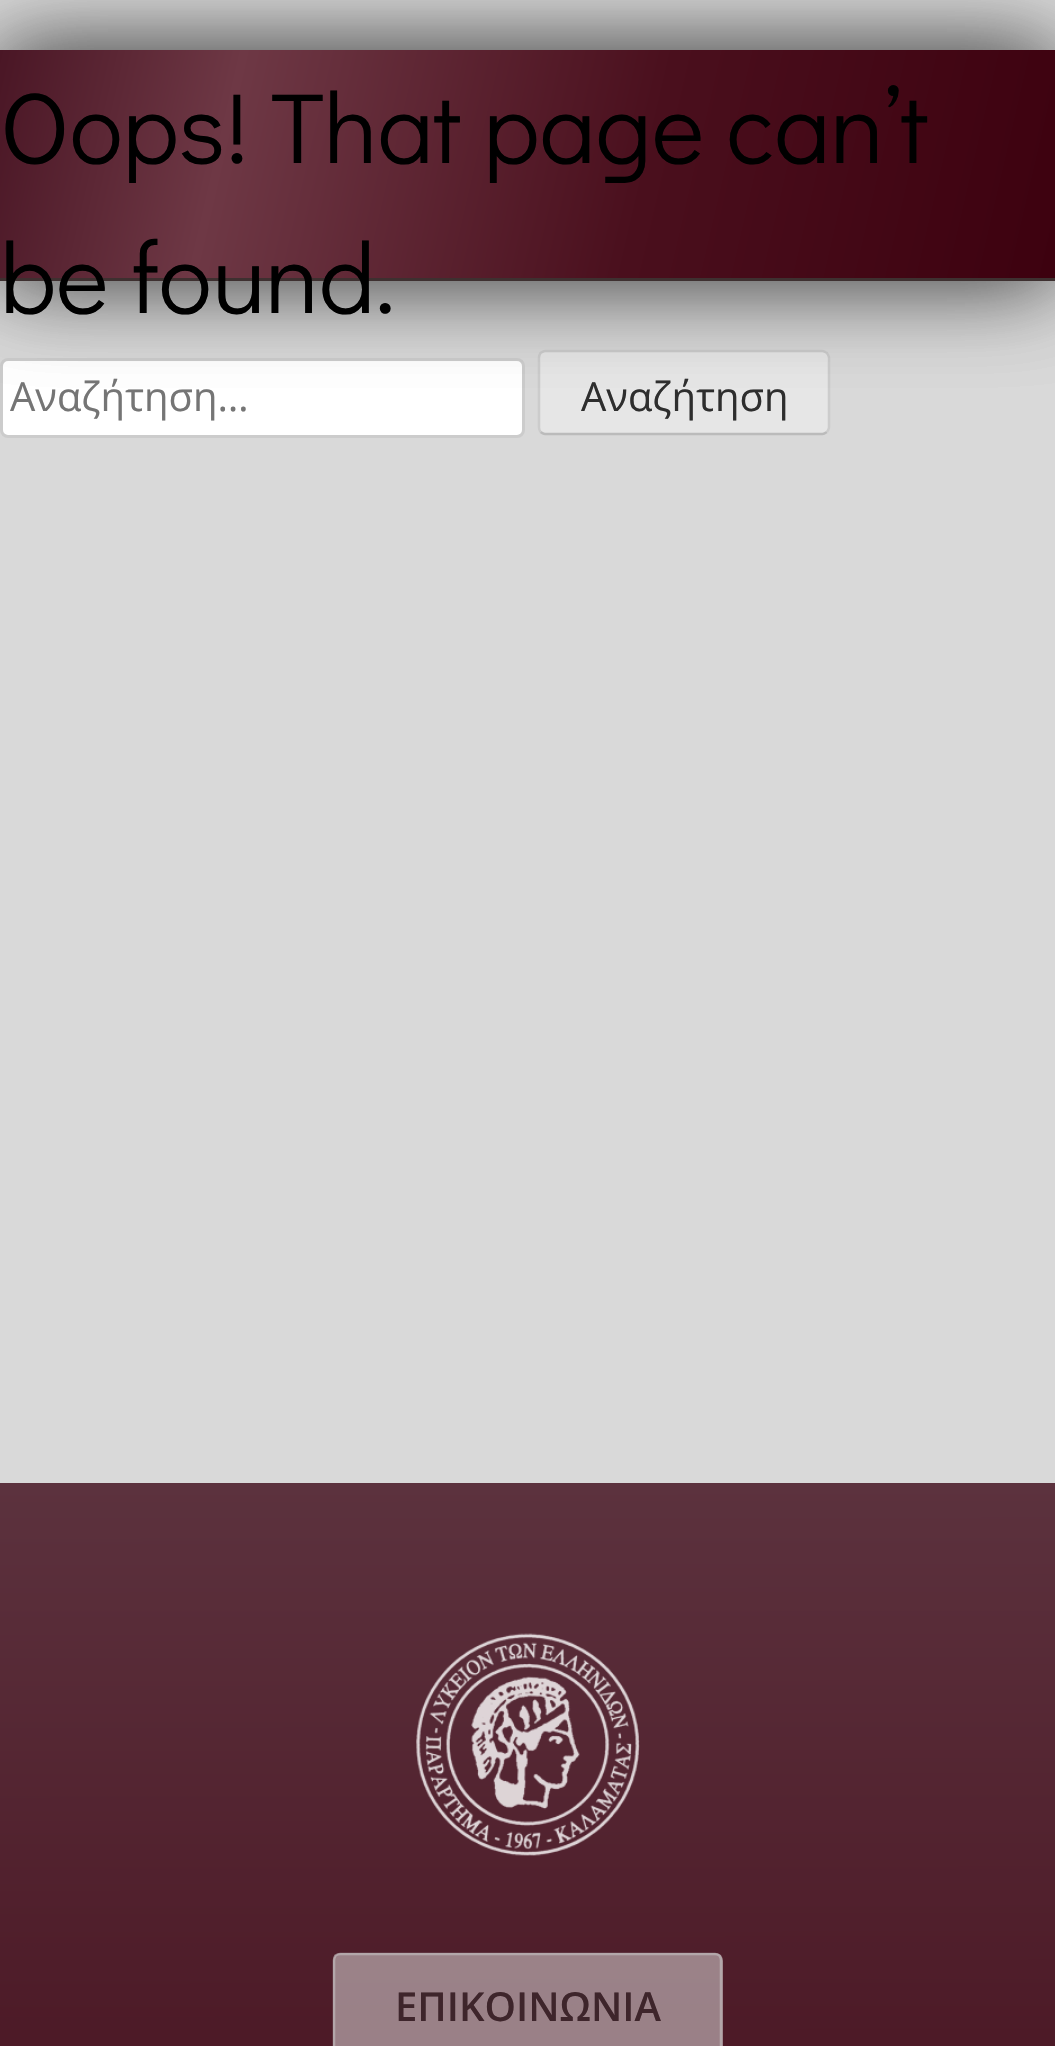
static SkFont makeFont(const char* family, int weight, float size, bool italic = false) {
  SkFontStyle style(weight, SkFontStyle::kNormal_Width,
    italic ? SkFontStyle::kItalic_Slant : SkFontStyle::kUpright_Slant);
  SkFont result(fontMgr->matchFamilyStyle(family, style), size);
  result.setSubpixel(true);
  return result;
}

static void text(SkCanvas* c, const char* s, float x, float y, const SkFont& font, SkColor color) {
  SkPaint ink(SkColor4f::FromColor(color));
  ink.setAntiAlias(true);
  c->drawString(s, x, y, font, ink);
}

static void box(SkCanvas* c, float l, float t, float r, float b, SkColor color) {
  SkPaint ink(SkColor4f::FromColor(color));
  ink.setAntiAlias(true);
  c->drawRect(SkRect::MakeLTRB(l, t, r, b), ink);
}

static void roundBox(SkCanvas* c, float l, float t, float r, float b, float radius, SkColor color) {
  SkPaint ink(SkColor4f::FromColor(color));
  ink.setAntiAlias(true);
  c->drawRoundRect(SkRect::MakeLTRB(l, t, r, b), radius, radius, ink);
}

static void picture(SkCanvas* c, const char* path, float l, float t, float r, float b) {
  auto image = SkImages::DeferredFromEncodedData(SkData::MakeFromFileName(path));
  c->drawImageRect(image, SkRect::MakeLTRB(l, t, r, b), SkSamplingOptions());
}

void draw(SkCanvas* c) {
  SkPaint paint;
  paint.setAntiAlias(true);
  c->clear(0xffd9d9d9);
  paint.setColor(0xffffffff);
  c->drawRoundRect(SkRect::MakeLTRB(1.5f, 359.5f, 523.5f, 436.5f), 6.5f, 6.5f, paint);
  paint.setStyle(SkPaint::kStroke_Style);
  paint.setStrokeWidth(3);
  paint.setColor(0xffcccccc);
  c->drawRoundRect(SkRect::MakeLTRB(1.5f, 359.5f, 523.5f, 436.5f), 6.5f, 6.5f, paint);
  roundBox(c, 538, 350, 830, 435, 8, 0xffe6e6e6);
  paint.setStrokeWidth(2.5f);
  paint.setColor(0xffbbbbbb);
  c->drawPath(SkPathBuilder().moveTo(827, 432).cubicTo(825.5f, 433, 824, 434, 822.5f, 434).lineTo(545, 434).cubicTo(543.5f, 434, 542, 433, 540.5f, 432).detach(), paint);
  paint.setColor(0xffcccccc);
  c->drawPath(SkPathBuilder().moveTo(540.5f, 432).cubicTo(539.5f, 430.5f, 539, 429, 539, 427.5f).lineTo(539, 357.5f).cubicTo(539, 356, 539.5f, 354.5f, 540.5f, 353).cubicTo(542, 352, 543.5f, 351, 545, 351).lineTo(822.5f, 351).cubicTo(824, 351, 825.5f, 352, 827, 353).cubicTo(828, 354.5f, 829, 356, 829, 357.5f).lineTo(829, 427.5f).cubicTo(829, 429, 828, 430.5f, 827, 432).detach(), paint);
  paint.setStyle(SkPaint::kFill_Style);
  paint.setColor(0x73000000);
  paint.setMaskFilter(SkMaskFilter::MakeBlur(kNormal_SkBlurStyle, 45));
  c->drawRect(SkRect::MakeLTRB(0, 50, 1055, 280), paint);
  paint.setMaskFilter(nullptr);
  paint.setMaskFilter(SkMaskFilter::MakeBlur(kNormal_SkBlurStyle, 45));
  c->drawRect(SkRect::MakeLTRB(0, 50, 1055, 280), paint);
  paint.setMaskFilter(nullptr);
  {
    const SkColor colors[] = {0xff4a1625, 0xff6e3845, 0xff4a0f1d, 0xff3d010f};
    const float stops[] = {0, 0.22f, 0.61f, 1};
    const SkPoint ends[] = {{1.8f, 42}, {1053, 285}};
    paint.setShader(SkGradientShader::MakeLinear(ends, colors, stops, 4, SkTileMode::kClamp));
    paint.setAlpha(255);
  }
  c->drawRect(SkRect::MakeLTRB(0, 50, 1055, 278), paint);
  box(c, 0, 278, 1055, 281, 0xff3e3030);
  SkFont face1 = makeFont("Didact Gothic", 400, 100);
  text(c, "Oops! That page can’t", 0, 163, face1, 0xff000000);
  text(c, "be found.", 0, 313, face1, 0xff000000);
  SkFont face2 = makeFont("Open Sans", 400, 40);
  text(c, "Αναζήτηση…", 10, 411, face2, 0xff757575);
  text(c, "Αναζήτηση", 581, 411, face2, 0xff2e2e2e);
  {
    const SkColor colors[] = {0xff5c323e, 0xff3d010f};
    const float stops[] = {0, 1};
    const SkPoint ends[] = {{527, 1483}, {528, 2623}};
    paint.setShader(SkGradientShader::MakeLinear(ends, colors, stops, 2, SkTileMode::kClamp));
    paint.setAlpha(255);
  }
  c->drawRect(SkRect::MakeLTRB(0, 1483, 1055, 2046), paint);
  picture(c, "img_01.png", 416, 1633, 640, 1856);
  roundBox(c, 333, 1953, 723, 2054, 8, 0x80e6e6e6);
  paint.setStyle(SkPaint::kStroke_Style);
  paint.setShader(nullptr);
  paint.setColor(0x80cccccc);
  c->drawPath(SkPathBuilder().moveTo(335.5f, 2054.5f).cubicTo(334.5f, 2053, 334, 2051.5f, 334, 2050).lineTo(334, 1960).cubicTo(334, 1958.5f, 334.5f, 1957, 335.5f, 1955.5f).cubicTo(337, 1954.5f, 338.5f, 1954, 340, 1954).lineTo(715, 1954).cubicTo(716.5f, 1954, 718, 1954.5f, 719.5f, 1955.5f).cubicTo(720.5f, 1957, 721, 1958.5f, 721, 1960).lineTo(721, 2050).cubicTo(721, 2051.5f, 720.5f, 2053, 719.5f, 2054.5f).detach(), paint);
  SkFont face3 = makeFont("Open Sans", 600, 40);
  text(c, "ΕΠΙΚΟΙΝΩΝΙΑ", 395, 2021, face3, 0xff3e252b);
}
